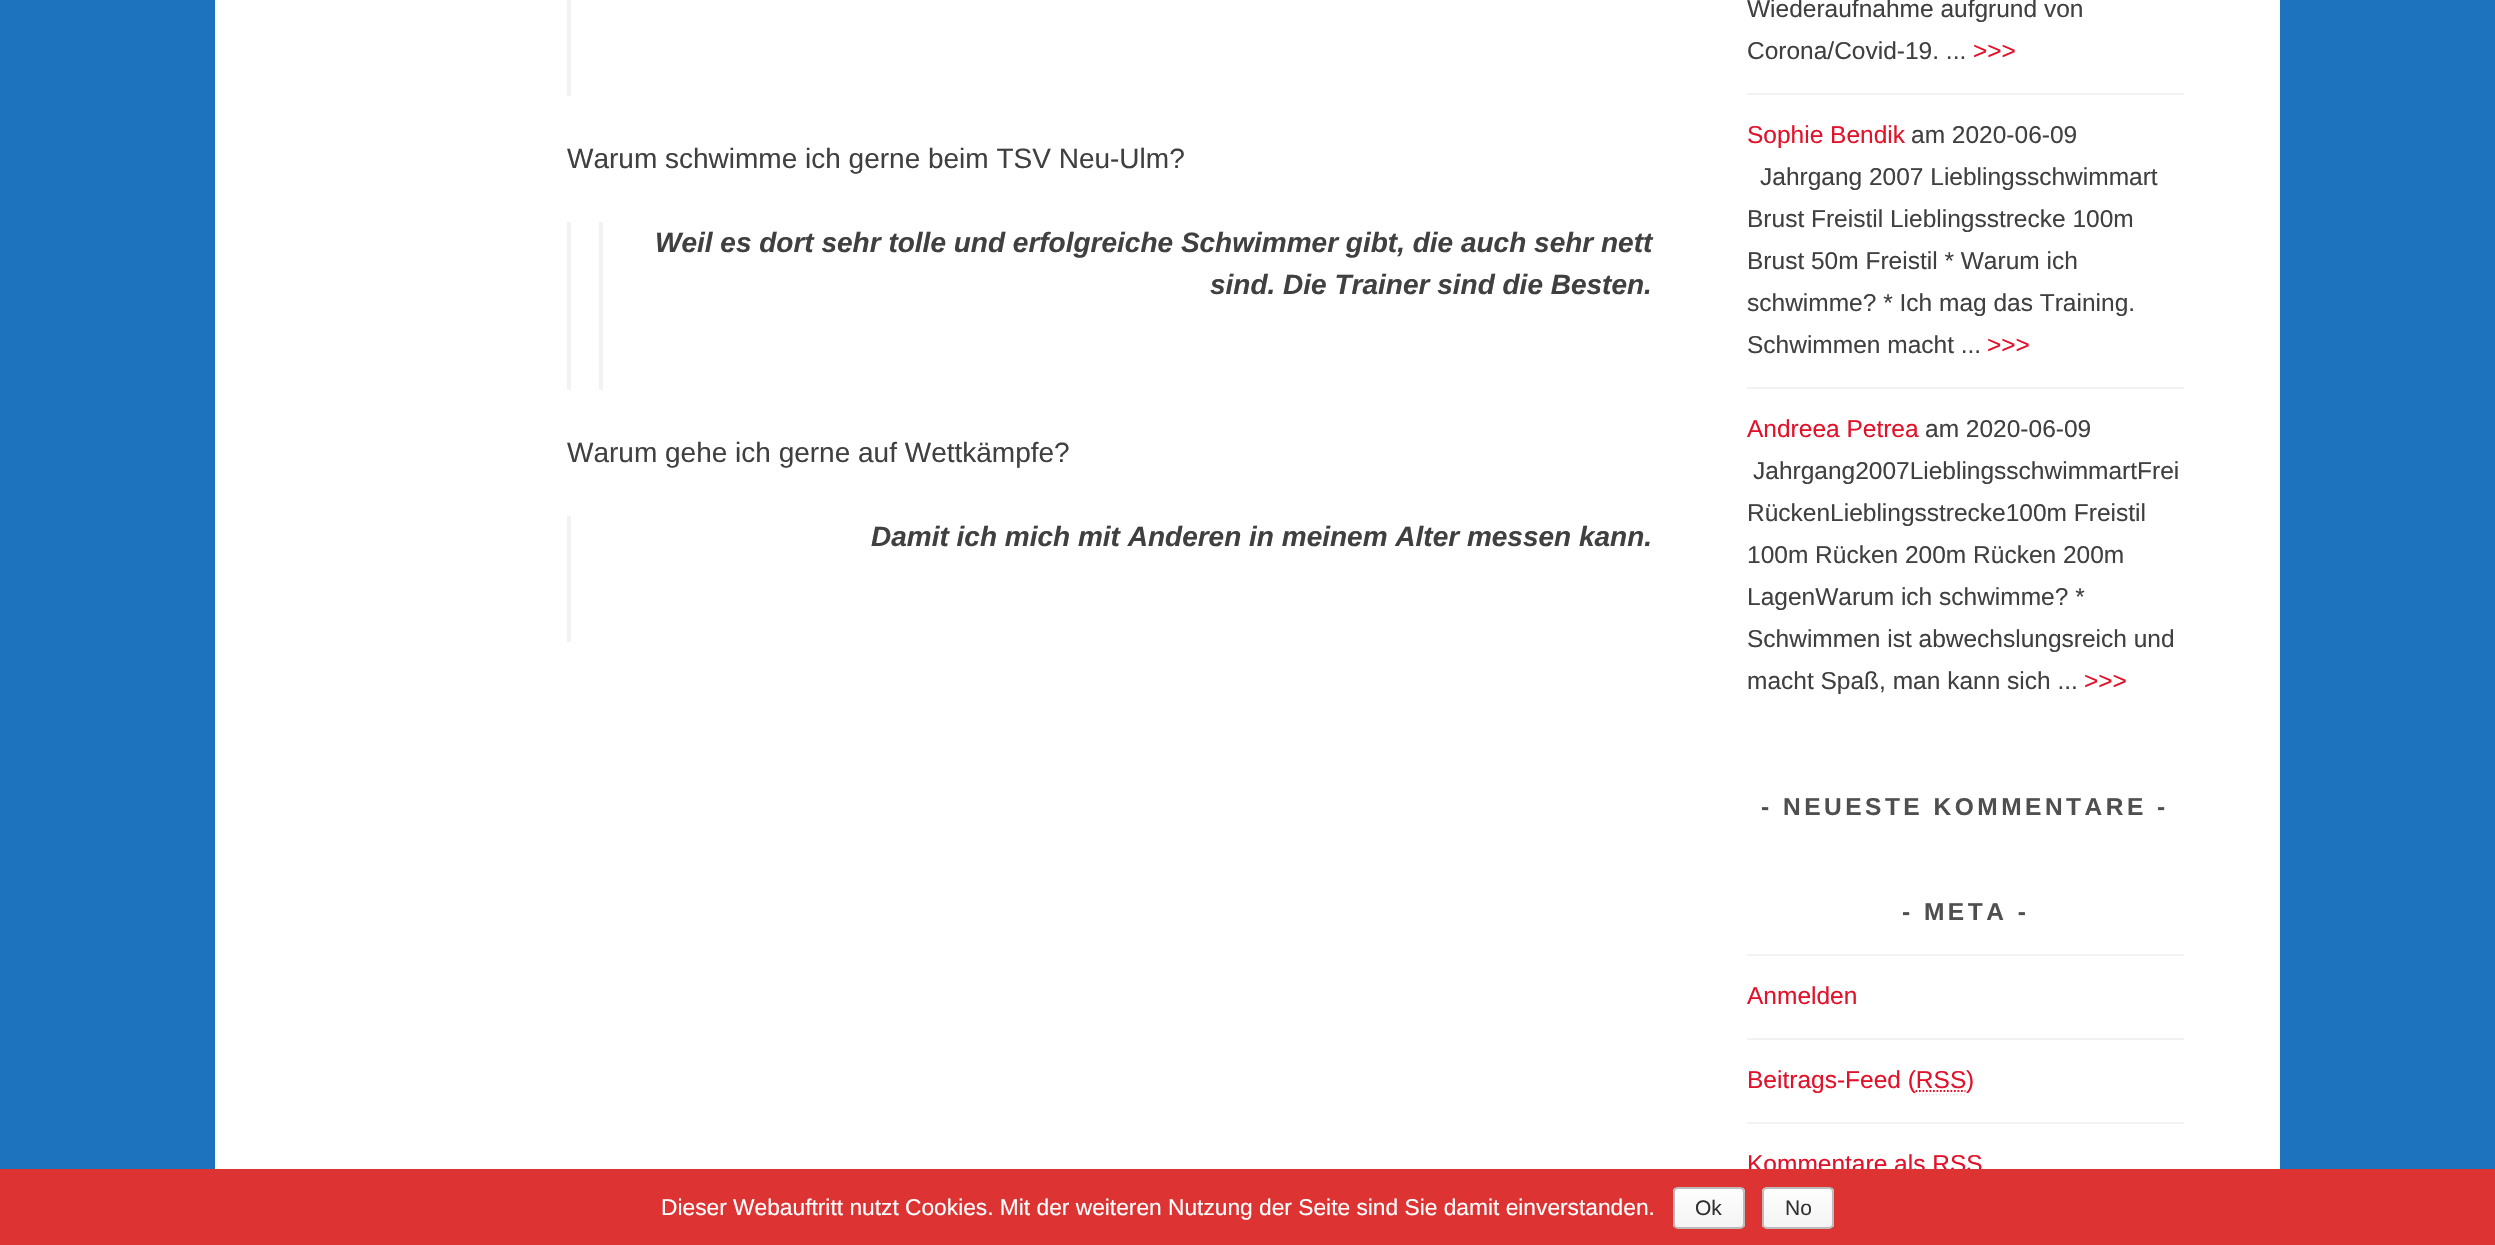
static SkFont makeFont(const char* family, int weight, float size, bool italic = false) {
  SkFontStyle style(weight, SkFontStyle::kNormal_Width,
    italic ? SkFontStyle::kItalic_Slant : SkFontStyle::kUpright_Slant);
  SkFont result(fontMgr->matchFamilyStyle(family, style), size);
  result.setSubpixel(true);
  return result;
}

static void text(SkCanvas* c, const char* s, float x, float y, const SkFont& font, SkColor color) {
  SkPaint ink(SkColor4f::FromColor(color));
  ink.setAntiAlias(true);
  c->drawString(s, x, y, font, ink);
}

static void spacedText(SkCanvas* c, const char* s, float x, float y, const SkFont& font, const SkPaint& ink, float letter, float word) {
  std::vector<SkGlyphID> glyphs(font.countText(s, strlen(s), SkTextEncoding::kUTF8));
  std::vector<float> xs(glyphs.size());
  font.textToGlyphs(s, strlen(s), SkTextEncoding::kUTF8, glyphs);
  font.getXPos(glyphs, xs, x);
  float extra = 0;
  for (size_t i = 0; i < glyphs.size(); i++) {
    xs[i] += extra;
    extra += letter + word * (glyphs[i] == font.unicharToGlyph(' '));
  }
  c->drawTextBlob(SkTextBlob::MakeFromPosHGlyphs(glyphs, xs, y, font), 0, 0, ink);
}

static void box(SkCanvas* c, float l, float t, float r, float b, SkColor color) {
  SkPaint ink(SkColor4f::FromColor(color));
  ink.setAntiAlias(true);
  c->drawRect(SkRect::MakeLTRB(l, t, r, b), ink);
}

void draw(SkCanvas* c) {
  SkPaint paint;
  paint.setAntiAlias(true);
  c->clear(0xff1e73be);
  box(c, 215, 0, 2280, 1169, 0xffffffff);
  box(c, 567, 0, 571, 96, 0xfff2f2f2);
  SkFont face1 = makeFont("Liberation Sans", 400, 28);
  text(c, "Warum schwimme ich gerne beim TSV Neu-Ulm?", 567, 168, face1, 0xff404040);
  box(c, 567, 222, 571, 390, 0xfff2f2f2);
  box(c, 599, 222, 603, 390, 0xfff2f2f2);
  SkFont face2 = makeFont("Liberation Sans", 700, 28, true);
  text(c, "Weil es dort sehr tolle und erfolgreiche Schwimmer gibt, die auch sehr nett", 655, 252, face2, 0xff404040);
  text(c, "sind. Die Trainer sind die Besten.", 1210, 294, face2, 0xff404040);
  text(c, "Warum gehe ich gerne auf Wettkämpfe?", 567, 462, face1, 0xff404040);
  box(c, 567, 516, 571, 642, 0xfff2f2f2);
  text(c, "Damit ich mich mit Anderen in meinem Alter messen kann.", 871, 546, face2, 0xff404040);
  SkFont face3 = makeFont("Liberation Sans", 400, 24.5f);
  text(c, "Wiederaufnahme aufgrund von", 1747, 17, face3, 0xff404040);
  text(c, "Corona/Covid-19. ...", 1747, 59, face3, 0xff404040);
  text(c, ">>>", 1973, 59, face3, 0xffe1122a);
  box(c, 1747, 93, 2184, 95, 0xfff2f2f2);
  text(c, "Sophie Bendik", 1747, 143, face3, 0xffe1122a);
  text(c, "am 2020-06-09", 1911, 143, face3, 0xff404040);
  text(c, "Jahrgang 2007 Lieblingsschwimmart", 1760, 185, face3, 0xff404040);
  text(c, "Brust Freistil Lieblingsstrecke 100m", 1747, 227, face3, 0xff404040);
  text(c, "Brust 50m Freistil * Warum ich", 1747, 269, face3, 0xff404040);
  text(c, "schwimme? * Ich mag das Training.", 1747, 311, face3, 0xff404040);
  text(c, "Schwimmen macht ...", 1747, 353, face3, 0xff404040);
  text(c, ">>>", 1987, 353, face3, 0xffe1122a);
  box(c, 1747, 387, 2184, 389, 0xfff2f2f2);
  text(c, "Andreea Petrea", 1747, 437, face3, 0xffe1122a);
  text(c, "am 2020-06-09", 1925, 437, face3, 0xff404040);
  text(c, "Jahrgang2007LieblingsschwimmartFrei", 1753, 479, face3, 0xff404040);
  text(c, "RückenLieblingsstrecke100m Freistil", 1747, 521, face3, 0xff404040);
  text(c, "100m Rücken 200m Rücken 200m", 1747, 563, face3, 0xff404040);
  text(c, "LagenWarum ich schwimme? *", 1747, 605, face3, 0xff404040);
  text(c, "Schwimmen ist abwechslungsreich und", 1747, 647, face3, 0xff404040);
  text(c, "macht Spaß, man kann sich ...", 1747, 689, face3, 0xff404040);
  text(c, ">>>", 2084, 689, face3, 0xffe1122a);
  SkFont face4 = makeFont("Liberation Sans", 700, 24.5f);
  paint.setColor(0xff4f4f4f);
  spacedText(c, "- NEUESTE KOMMENTARE -", 1761, 815, face4, paint, 3.5f, 0);
  spacedText(c, "- META -", 1902, 920, face4, paint, 3.5f, 0);
  box(c, 1747, 954, 2184, 956, 0xfff2f2f2);
  text(c, "Anmelden", 1747, 1004, face3, 0xffe1122a);
  box(c, 1747, 1038, 2184, 1040, 0xfff2f2f2);
  text(c, "Beitrags-Feed (RSS", 1747, 1088, face3, 0xffe1122a);
  paint.setStyle(SkPaint::kStroke_Style);
  paint.setStrokeWidth(1.8f);
  paint.setColor(0xffe6e6e6);
  paint.setPathEffect(SkDashPathEffect::Make({{1.75f, 1.75f}}, 0));
  c->drawPath(SkPathBuilder().moveTo(1914.5f, 1094.5f).lineTo(1965, 1094.5f).detach(), paint);
  paint.setPathEffect(nullptr);
  paint.setColor(0xffe1122a);
  paint.setPathEffect(SkDashPathEffect::Make({{1.75f, 1.75f}}, 0));
  c->drawPath(SkPathBuilder().moveTo(1915.5f, 1091).lineTo(1965.5f, 1091).detach(), paint);
  paint.setPathEffect(nullptr);
  text(c, ")", 1966, 1088, face3, 0xffe1122a);
  box(c, 1747, 1122, 2184, 1124, 0xfff2f2f2);
  text(c, "Kommentare als RSS", 1747, 1172, face3, 0xffe1122a);
  box(c, 0, 1169, 2495, 1245, 0xffdd3333);
  SkFont face5 = makeFont("Liberation Sans", 400, 22.75f);
  text(c, "Dieser Webauftritt nutzt Cookies. Mit der weiteren Nutzung der Seite sind Sie damit einverstanden.", 661, 1215, face5, 0xffffffff);
  c->save();
  c->clipPath(SkPathBuilder().moveTo(1678, 1187).lineTo(1740, 1187).cubicTo(1743, 1187, 1745, 1189, 1745, 1192).lineTo(1745, 1224).cubicTo(1745, 1227, 1743, 1229, 1740, 1229).lineTo(1678, 1229).cubicTo(1675, 1229, 1673, 1227, 1673, 1224).lineTo(1673, 1192).cubicTo(1673, 1189, 1675, 1187, 1678, 1187).close().detach(), true);
  paint.setStyle(SkPaint::kFill_Style);
  {
    const SkColor colors[] = {0xfffefefe, 0xfff4f4f4};
    const float stops[] = {0, 1};
    const SkPoint ends[] = {{1709, 1188}, {1709, 1227}};
    paint.setShader(SkGradientShader::MakeLinear(ends, colors, stops, 2, SkTileMode::kClamp));
    paint.setAlpha(255);
  }
  c->drawRect(SkRect::MakeLTRB(1673, 1188, 1745, 1227), paint);
  c->restore();
  paint.setStyle(SkPaint::kStroke_Style);
  paint.setStrokeWidth(2);
  paint.setShader(nullptr);
  paint.setColor(0xffbbbbbb);
  c->drawRoundRect(SkRect::MakeLTRB(1674, 1188, 1744, 1228), 4, 4, paint);
  SkFont face6 = makeFont("Liberation Sans", 400, 21);
  text(c, "Ok", 1695, 1215, face6, 0xff333333);
  c->save();
  c->clipPath(SkPathBuilder().moveTo(1767, 1187).lineTo(1829, 1187).cubicTo(1832, 1187, 1834, 1189, 1834, 1192).lineTo(1834, 1224).cubicTo(1834, 1227, 1832, 1229, 1829, 1229).lineTo(1767, 1229).cubicTo(1764, 1229, 1762, 1227, 1762, 1224).lineTo(1762, 1192).cubicTo(1762, 1189, 1764, 1187, 1767, 1187).close().detach(), true);
  paint.setStyle(SkPaint::kFill_Style);
  {
    const SkColor colors[] = {0xfffefefe, 0xfff4f4f4};
    const float stops[] = {0, 1};
    const SkPoint ends[] = {{1798, 1188}, {1798, 1227}};
    paint.setShader(SkGradientShader::MakeLinear(ends, colors, stops, 2, SkTileMode::kClamp));
    paint.setAlpha(255);
  }
  c->drawRect(SkRect::MakeLTRB(1762, 1188, 1834, 1227), paint);
  c->restore();
  paint.setStyle(SkPaint::kStroke_Style);
  paint.setShader(nullptr);
  paint.setColor(0xffbbbbbb);
  c->drawRoundRect(SkRect::MakeLTRB(1763, 1188, 1833, 1228), 4, 4, paint);
  text(c, "No", 1785, 1215, face6, 0xff333333);
}
